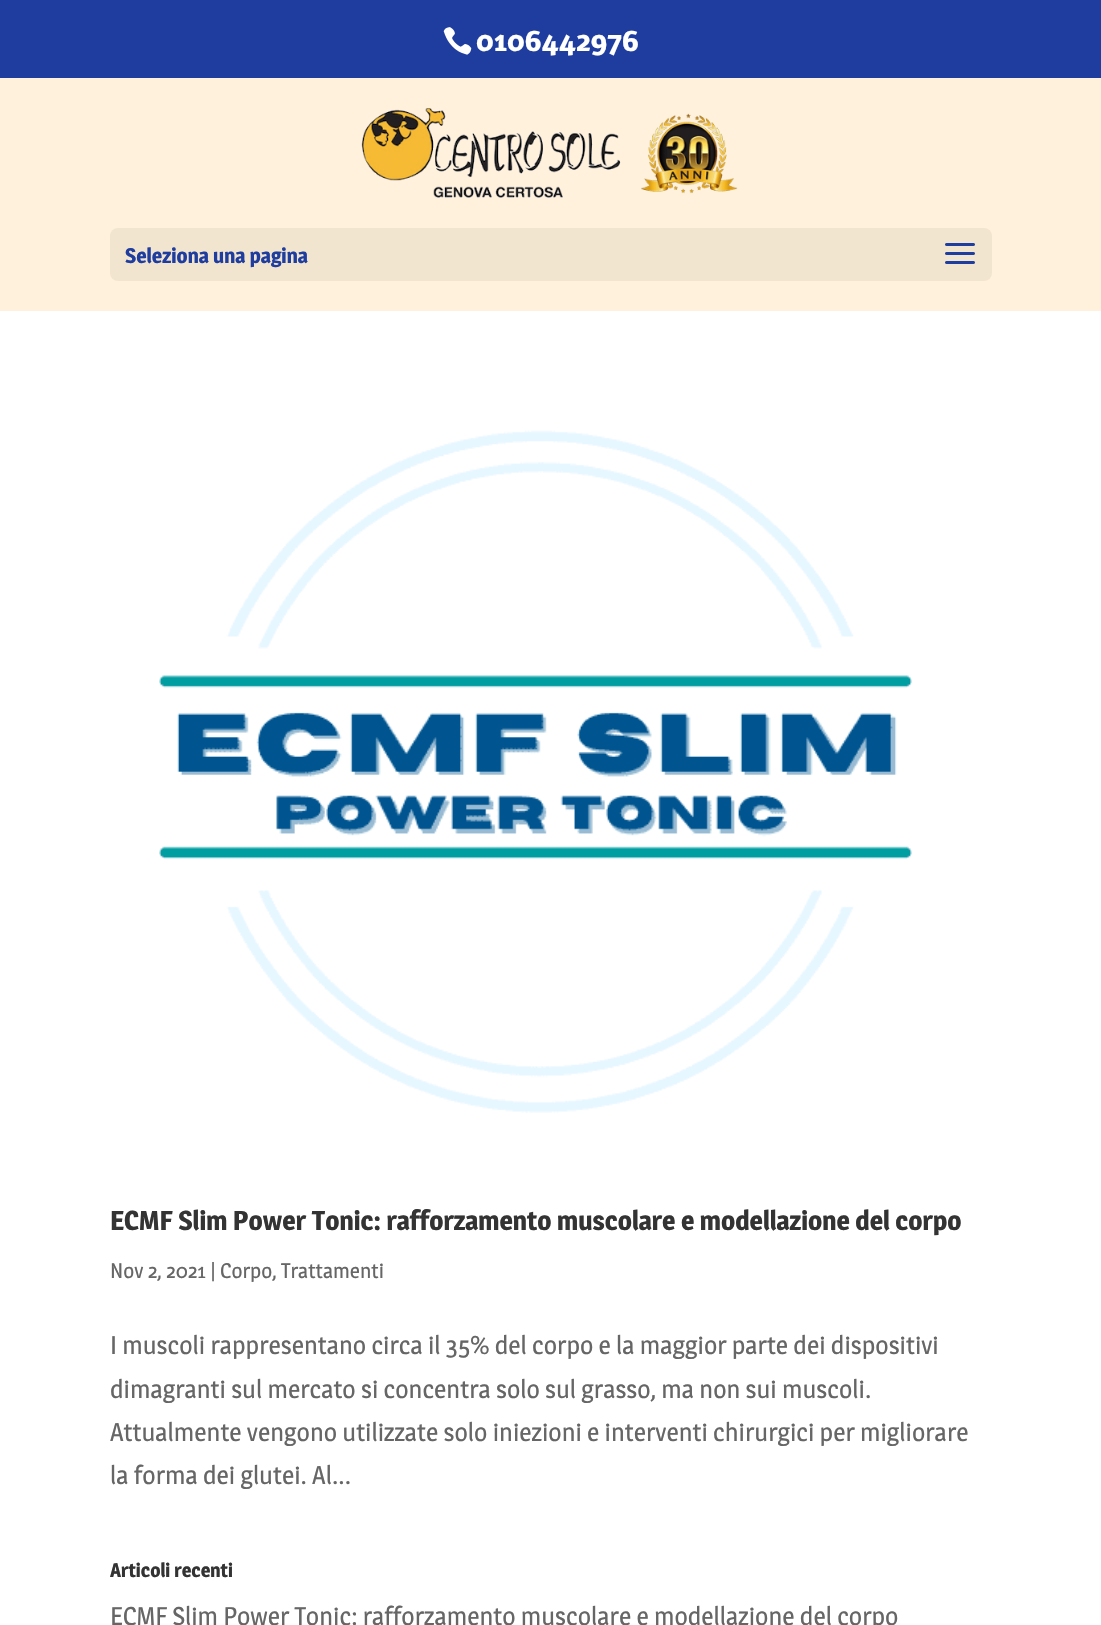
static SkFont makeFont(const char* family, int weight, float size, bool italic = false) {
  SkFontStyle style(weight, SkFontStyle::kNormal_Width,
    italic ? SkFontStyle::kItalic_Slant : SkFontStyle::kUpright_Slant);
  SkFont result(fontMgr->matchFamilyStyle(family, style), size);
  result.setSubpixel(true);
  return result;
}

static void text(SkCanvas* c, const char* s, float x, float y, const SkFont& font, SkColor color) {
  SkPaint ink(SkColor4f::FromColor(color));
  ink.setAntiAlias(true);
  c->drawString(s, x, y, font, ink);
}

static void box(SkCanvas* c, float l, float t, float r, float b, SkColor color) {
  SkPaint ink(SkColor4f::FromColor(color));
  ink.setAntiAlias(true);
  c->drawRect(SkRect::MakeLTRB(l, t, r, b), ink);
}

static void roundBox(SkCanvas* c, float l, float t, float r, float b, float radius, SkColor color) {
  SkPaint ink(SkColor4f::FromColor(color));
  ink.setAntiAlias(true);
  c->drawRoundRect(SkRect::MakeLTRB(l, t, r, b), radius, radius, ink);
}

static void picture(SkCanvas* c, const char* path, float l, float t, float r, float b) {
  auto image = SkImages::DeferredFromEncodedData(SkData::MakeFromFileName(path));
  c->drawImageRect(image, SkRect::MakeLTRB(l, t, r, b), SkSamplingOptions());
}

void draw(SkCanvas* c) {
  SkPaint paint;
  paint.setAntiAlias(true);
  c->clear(0xffffffff);
  box(c, 0, 0, 1101, 78, 0xff1f3d9e);
  picture(c, "img_01.png", 443, 27, 472, 55);
  SkFont face1 = makeFont("Magra", 700, 30);
  text(c, "0106442976", 476, 51, face1, 0xffffffff);
  box(c, 0, 78, 1101, 311, 0xfffff1db);
  picture(c, "img_02.png", 361, 108, 738, 198);
  roundBox(c, 110, 228, 992, 281, 8, 0xfff2e5d0);
  SkFont face2 = makeFont("Magra", 700, 21);
  text(c, "Seleziona una pagina", 125, 263, face2, 0xff1f3d9e);
  picture(c, "img_03.png", 945, 243, 975, 264);
  picture(c, "img_04.png", 159, 430, 912, 1113);
  SkFont face3 = makeFont("Magra", 700, 27);
  text(c, "ECMF Slim Power Tonic: rafforzamento muscolare e modellazione del corpo", 110, 1230, face3, 0xff333333);
  SkFont face4 = makeFont("Magra", 400, 21);
  text(c, "Nov 2, 2021 | Corpo, Trattamenti", 110, 1278, face4, 0xff666666);
  SkFont face5 = makeFont("Magra", 400, 25.5f);
  text(c, "I muscoli rappresentano circa il 35% del corpo e la maggior parte dei dispositivi", 110, 1354, face5, 0xff666666);
  text(c, "dimagranti sul mercato si concentra solo sul grasso, ma non sui muscoli.", 110, 1398, face5, 0xff666666);
  text(c, "Attualmente vengono utilizzate solo iniezioni e interventi chirurgici per migliorare", 110, 1441, face5, 0xff666666);
  text(c, "la forma dei glutei. Al...", 110, 1484, face5, 0xff666666);
  SkFont face6 = makeFont("Magra", 700, 19.5f);
  text(c, "Articoli recenti", 110, 1577, face6, 0xff333333);
  text(c, "ECMF Slim Power Tonic: rafforzamento muscolare e modellazione del corpo", 110, 1625, face5, 0xff666666);
}
